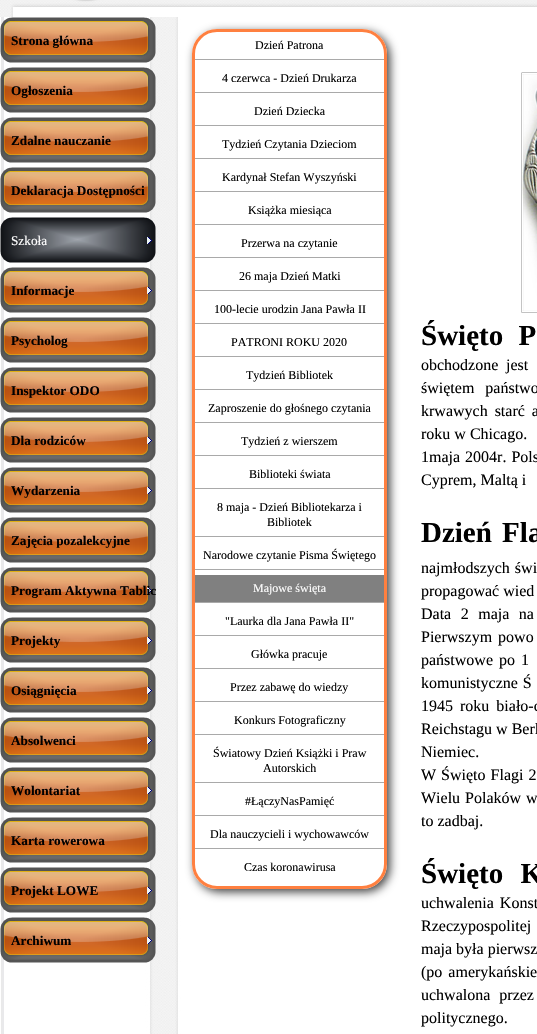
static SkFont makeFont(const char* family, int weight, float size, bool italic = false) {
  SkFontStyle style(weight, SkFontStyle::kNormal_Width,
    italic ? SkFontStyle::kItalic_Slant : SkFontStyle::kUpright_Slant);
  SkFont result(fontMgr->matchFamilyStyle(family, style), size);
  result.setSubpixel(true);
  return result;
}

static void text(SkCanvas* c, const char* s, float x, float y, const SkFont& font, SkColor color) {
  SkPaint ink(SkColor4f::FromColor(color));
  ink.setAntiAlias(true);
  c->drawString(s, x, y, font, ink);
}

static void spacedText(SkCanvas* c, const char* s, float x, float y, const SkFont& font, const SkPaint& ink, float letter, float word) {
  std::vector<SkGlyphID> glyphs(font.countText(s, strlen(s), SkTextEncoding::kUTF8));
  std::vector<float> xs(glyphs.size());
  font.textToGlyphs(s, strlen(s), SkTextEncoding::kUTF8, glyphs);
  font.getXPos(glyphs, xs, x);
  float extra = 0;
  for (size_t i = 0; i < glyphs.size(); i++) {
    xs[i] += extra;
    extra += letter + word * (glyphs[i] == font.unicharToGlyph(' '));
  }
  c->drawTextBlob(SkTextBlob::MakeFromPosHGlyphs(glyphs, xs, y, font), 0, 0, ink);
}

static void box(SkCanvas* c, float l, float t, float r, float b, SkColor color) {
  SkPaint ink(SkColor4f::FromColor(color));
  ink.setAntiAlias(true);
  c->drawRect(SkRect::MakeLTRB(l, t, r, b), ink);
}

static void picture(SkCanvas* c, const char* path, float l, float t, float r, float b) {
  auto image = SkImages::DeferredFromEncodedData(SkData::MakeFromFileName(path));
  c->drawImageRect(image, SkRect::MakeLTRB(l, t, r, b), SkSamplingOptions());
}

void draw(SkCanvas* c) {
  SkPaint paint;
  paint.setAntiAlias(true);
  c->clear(0xffffffff);
  picture(c, "img_01.png", 0, 0, 165, 1034);
  picture(c, "img_02.png", 11, 0, 537, 17);
  picture(c, "img_03.png", 0, 17, 159, 1034);
  picture(c, "img_04.png", 165, 17, 537, 1034);
  picture(c, "img_05.png", 0, 17, 156, 63);
  SkFont face1 = makeFont("Liberation Serif", 700, 13.25f);
  text(c, "Strona główna", 11, 45, face1, 0xff000000);
  picture(c, "img_06.png", 0, 67, 156, 113);
  text(c, "Ogłoszenia", 11, 95, face1, 0xff000000);
  picture(c, "img_07.png", 0, 117, 156, 163);
  text(c, "Zdalne nauczanie", 11, 145, face1, 0xff000000);
  picture(c, "img_08.png", 0, 167, 156, 213);
  text(c, "Deklaracja Dostępności", 11, 195, face1, 0xff000000);
  picture(c, "img_09.png", 0, 217, 156, 263);
  SkFont face2 = makeFont("Liberation Serif", 400, 13.25f);
  text(c, "Szkoła", 11, 245, face2, 0xffffffff);
  picture(c, "img_10.png", 147, 237, 152, 244);
  picture(c, "img_11.png", 0, 267, 156, 313);
  text(c, "Informacje", 11, 295, face1, 0xff000000);
  picture(c, "img_12.png", 147, 287, 152, 294);
  picture(c, "img_13.png", 0, 317, 156, 363);
  text(c, "Psycholog", 11, 345, face1, 0xff000000);
  picture(c, "img_14.png", 0, 367, 156, 413);
  text(c, "Inspektor ODO", 11, 395, face1, 0xff000000);
  picture(c, "img_05.png", 0, 417, 156, 463);
  text(c, "Dla rodziców", 11, 445, face1, 0xff000000);
  picture(c, "img_12.png", 147, 437, 152, 444);
  picture(c, "img_06.png", 0, 467, 156, 513);
  text(c, "Wydarzenia", 11, 495, face1, 0xff000000);
  picture(c, "img_12.png", 147, 487, 152, 494);
  picture(c, "img_07.png", 0, 517, 156, 563);
  text(c, "Zajęcia pozalekcyjne", 11, 545, face1, 0xff000000);
  picture(c, "img_08.png", 0, 567, 156, 613);
  picture(c, "img_12.png", 147, 587, 152, 594);
  c->save();
  c->clipRect(SkRect::MakeLTRB(0, 567, 156, 614));
  text(c, "Program Aktywna Tablic", 11, 595, face1, 0xff000000);
  c->restore();
  picture(c, "img_15.png", 0, 617, 156, 663);
  text(c, "Projekty", 11, 645, face1, 0xff000000);
  picture(c, "img_12.png", 147, 637, 152, 644);
  picture(c, "img_11.png", 0, 667, 156, 713);
  text(c, "Osiągnięcia", 11, 695, face1, 0xff000000);
  picture(c, "img_12.png", 147, 687, 152, 694);
  picture(c, "img_13.png", 0, 717, 156, 763);
  text(c, "Absolwenci", 11, 745, face1, 0xff000000);
  picture(c, "img_12.png", 147, 737, 152, 744);
  picture(c, "img_14.png", 0, 767, 156, 813);
  text(c, "Wolontariat", 11, 795, face1, 0xff000000);
  picture(c, "img_12.png", 147, 787, 152, 794);
  picture(c, "img_05.png", 0, 817, 156, 863);
  text(c, "Karta rowerowa", 11, 845, face1, 0xff000000);
  picture(c, "img_06.png", 0, 867, 156, 913);
  text(c, "Projekt LOWE", 11, 895, face1, 0xff000000);
  picture(c, "img_12.png", 147, 887, 152, 894);
  picture(c, "img_07.png", 0, 917, 156, 963);
  text(c, "Archiwum", 11, 945, face1, 0xff000000);
  picture(c, "img_12.png", 147, 937, 152, 944);
  c->save();
  c->clipPath(SkPathBuilder(SkPathFillType::kEvenOdd).moveTo(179, 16).lineTo(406, 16).lineTo(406, 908).lineTo(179, 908).close().moveTo(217, 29).lineTo(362, 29).cubicTo(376, 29, 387, 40, 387, 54).lineTo(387, 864).cubicTo(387, 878, 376, 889, 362, 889).lineTo(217, 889).cubicTo(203, 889, 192, 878, 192, 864).lineTo(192, 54).cubicTo(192, 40, 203, 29, 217, 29).close().detach(), true);
  paint.setColor(0xff404040);
  paint.setMaskFilter(SkMaskFilter::MakeBlur(kNormal_SkBlurStyle, 5));
  c->drawRoundRect(SkRect::MakeLTRB(195, 32, 390, 892), 25, 25, paint);
  paint.setMaskFilter(nullptr);
  c->restore();
  paint.setStyle(SkPaint::kStroke_Style);
  paint.setStrokeWidth(3);
  paint.setColor(0xffff8040);
  c->drawRoundRect(SkRect::MakeLTRB(193.5f, 30.5f, 385.5f, 887.5f), 23.5f, 23.5f, paint);
  box(c, 195, 59, 384, 60, 0xffa9a9a9);
  SkFont face3 = makeFont("Liberation Serif", 400, 12);
  text(c, "Dzień Patrona", 255, 49, face3, 0xff000000);
  box(c, 195, 92, 384, 93, 0xffa9a9a9);
  text(c, "4 czerwca - Dzień Drukarza", 222, 82, face3, 0xff000000);
  box(c, 195, 125, 384, 126, 0xffa9a9a9);
  text(c, "Dzień Dziecka", 254, 115, face3, 0xff000000);
  box(c, 195, 158, 384, 159, 0xffa9a9a9);
  text(c, "Tydzień Czytania Dzieciom", 222, 148, face3, 0xff000000);
  box(c, 195, 191, 384, 192, 0xffa9a9a9);
  text(c, "Kardynał Stefan Wyszyński", 222, 181, face3, 0xff000000);
  box(c, 195, 224, 384, 225, 0xffa9a9a9);
  text(c, "Książka miesiąca", 248, 214, face3, 0xff000000);
  box(c, 195, 257, 384, 258, 0xffa9a9a9);
  text(c, "Przerwa na czytanie", 241, 247, face3, 0xff000000);
  box(c, 195, 290, 384, 291, 0xffa9a9a9);
  text(c, "26 maja Dzień Matki", 239, 280, face3, 0xff000000);
  box(c, 195, 323, 384, 324, 0xffa9a9a9);
  text(c, "100-lecie urodzin Jana Pawła II", 214, 313, face3, 0xff000000);
  box(c, 195, 356, 384, 357, 0xffa9a9a9);
  text(c, "PATRONI ROKU 2020", 231, 346, face3, 0xff000000);
  box(c, 195, 389, 384, 390, 0xffa9a9a9);
  text(c, "Tydzień Bibliotek", 246, 379, face3, 0xff000000);
  box(c, 195, 422, 384, 423, 0xffa9a9a9);
  text(c, "Zaproszenie do głośnego czytania", 208, 412, face3, 0xff000000);
  box(c, 195, 455, 384, 456, 0xffa9a9a9);
  text(c, "Tydzień z wierszem", 241, 445, face3, 0xff000000);
  box(c, 195, 488, 384, 489, 0xffa9a9a9);
  text(c, "Biblioteki świata", 249, 478, face3, 0xff000000);
  box(c, 195, 536, 384, 537, 0xffa9a9a9);
  text(c, "8 maja - Dzień Bibliotekarza i", 217, 511, face3, 0xff000000);
  text(c, "Bibliotek", 267, 526, face3, 0xff000000);
  box(c, 195, 569, 384, 570, 0xffa9a9a9);
  text(c, "Narodowe czytanie Pisma Świętego", 203, 559, face3, 0xff000000);
  box(c, 195, 575, 384, 602, 0xff808080);
  box(c, 195, 602, 384, 603, 0xffa9a9a9);
  text(c, "Majowe święta", 253, 592, face3, 0xffffffff);
  box(c, 195, 635, 384, 636, 0xffa9a9a9);
  text(c, "\"Laurka dla Jana Pawła II\"", 225, 625, face3, 0xff000000);
  box(c, 195, 668, 384, 669, 0xffa9a9a9);
  text(c, "Główka pracuje", 251, 658, face3, 0xff000000);
  box(c, 195, 701, 384, 702, 0xffa9a9a9);
  text(c, "Przez zabawę do wiedzy", 230, 691, face3, 0xff000000);
  box(c, 195, 734, 384, 735, 0xffa9a9a9);
  text(c, "Konkurs Fotograficzny", 234, 724, face3, 0xff000000);
  box(c, 195, 782, 384, 783, 0xffa9a9a9);
  text(c, "Światowy Dzień Książki i Praw", 213, 757, face3, 0xff000000);
  text(c, "Autorskich", 263, 772, face3, 0xff000000);
  box(c, 195, 815, 384, 816, 0xffa9a9a9);
  text(c, "#ŁączyNasPamięć", 245, 805, face3, 0xff000000);
  box(c, 195, 848, 384, 849, 0xffa9a9a9);
  text(c, "Dla nauczycieli i wychowawców", 210, 838, face3, 0xff000000);
  text(c, "Czas koronawirusa", 244, 871, face3, 0xff000000);
  picture(c, "img_16.png", 521, 72, 537, 313);
  SkFont face4 = makeFont("Liberation Serif", 700, 29);
  paint.setStyle(SkPaint::kFill_Style);
  paint.setColor(0xff000000);
  spacedText(c, "Święto P", 421, 345, face4, paint, 0, 8);
  SkFont face5 = makeFont("Liberation Serif", 400, 16);
  text(c, "obchodzone", 421, 370, face5, 0xff000000);
  spacedText(c, "jest", 506, 370, face5, paint, 0, 4);
  spacedText(c, "świętem państwo", 421, 393, face5, paint, 0, 7);
  spacedText(c, "krwawych starć a", 421, 416, face5, paint, 0, 3);
  text(c, "roku w Chicago.", 421, 439, face5, 0xff000000);
  spacedText(c, "1maja 2004r. Pols", 421, 462, face5, paint, 0, 1);
  text(c, "Cyprem, Maltą i", 421, 485, face5, 0xff000000);
  spacedText(c, "Dzień Fla", 421, 542, face4, paint, 0, 3);
  spacedText(c, "najmłodszych świ", 421, 573, face5, paint, 0, 1);
  text(c, "propagować wied", 421, 596, face5, 0xff000000);
  spacedText(c, "Data 2 maja na", 421, 619, face5, paint, 0, 5.5f);
  spacedText(c, "Pierwszym powo", 421, 642, face5, paint, 0, 2);
  spacedText(c, "państwowe po 1", 421, 665, face5, paint, 0, 2);
  spacedText(c, "komunistyczne Ś", 421, 688, face5, paint, 0, 1);
  spacedText(c, "1945 roku biało-c", 421, 711, face5, paint, 0, 3);
  text(c, "Reichstagu w Berl", 421, 734, face5, 0xff000000);
  text(c, "Niemiec.", 421, 757, face5, 0xff000000);
  spacedText(c, "W Święto Flagi 2", 421, 780, face5, paint, 0, 1);
  spacedText(c, "Wielu Polaków w", 421, 803, face5, paint, 0, 1);
  text(c, "to zadbaj.", 421, 826, face5, 0xff000000);
  spacedText(c, "Święto K", 421, 883, face4, paint, 0, 10);
  spacedText(c, "uchwalenia Konst", 421, 908, face5, paint, 0, 2);
  spacedText(c, "Rzeczypospolitej", 421, 931, face5, paint, 0, 3);
  text(c, "maja była pierwsz", 421, 954, face5, 0xff000000);
  spacedText(c, "(po amerykańskie", 421, 977, face5, paint, 0, 2);
  spacedText(c, "uchwalona przez", 421, 1000, face5, paint, 0, 5);
  text(c, "politycznego.", 421, 1023, face5, 0xff000000);
}
